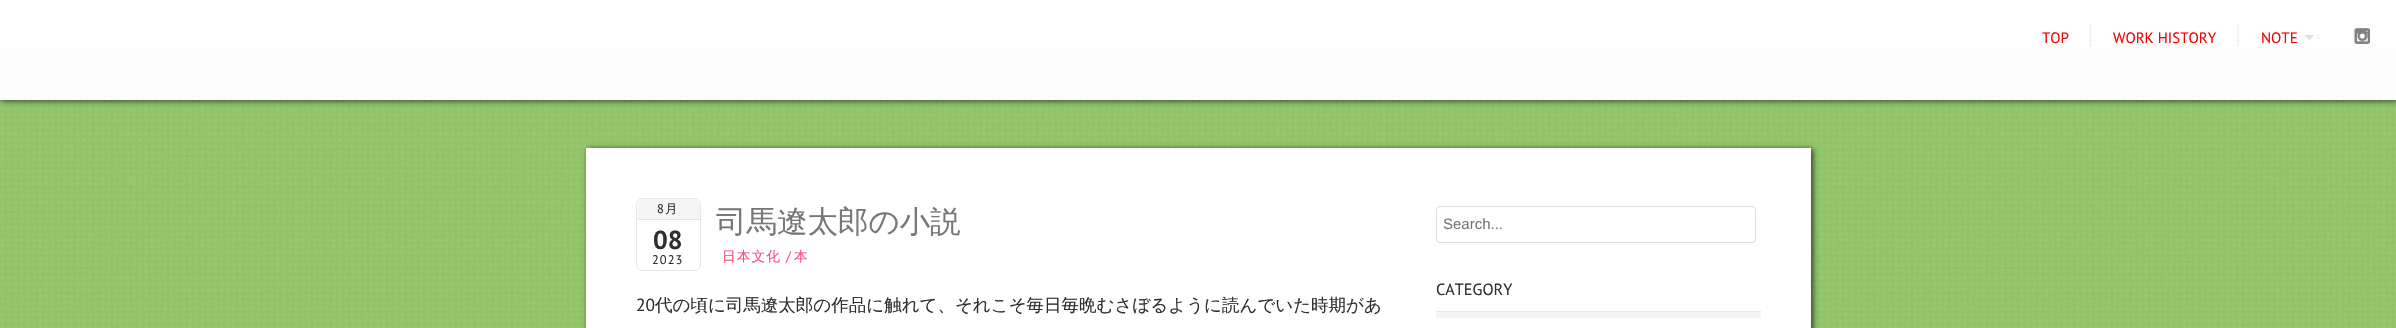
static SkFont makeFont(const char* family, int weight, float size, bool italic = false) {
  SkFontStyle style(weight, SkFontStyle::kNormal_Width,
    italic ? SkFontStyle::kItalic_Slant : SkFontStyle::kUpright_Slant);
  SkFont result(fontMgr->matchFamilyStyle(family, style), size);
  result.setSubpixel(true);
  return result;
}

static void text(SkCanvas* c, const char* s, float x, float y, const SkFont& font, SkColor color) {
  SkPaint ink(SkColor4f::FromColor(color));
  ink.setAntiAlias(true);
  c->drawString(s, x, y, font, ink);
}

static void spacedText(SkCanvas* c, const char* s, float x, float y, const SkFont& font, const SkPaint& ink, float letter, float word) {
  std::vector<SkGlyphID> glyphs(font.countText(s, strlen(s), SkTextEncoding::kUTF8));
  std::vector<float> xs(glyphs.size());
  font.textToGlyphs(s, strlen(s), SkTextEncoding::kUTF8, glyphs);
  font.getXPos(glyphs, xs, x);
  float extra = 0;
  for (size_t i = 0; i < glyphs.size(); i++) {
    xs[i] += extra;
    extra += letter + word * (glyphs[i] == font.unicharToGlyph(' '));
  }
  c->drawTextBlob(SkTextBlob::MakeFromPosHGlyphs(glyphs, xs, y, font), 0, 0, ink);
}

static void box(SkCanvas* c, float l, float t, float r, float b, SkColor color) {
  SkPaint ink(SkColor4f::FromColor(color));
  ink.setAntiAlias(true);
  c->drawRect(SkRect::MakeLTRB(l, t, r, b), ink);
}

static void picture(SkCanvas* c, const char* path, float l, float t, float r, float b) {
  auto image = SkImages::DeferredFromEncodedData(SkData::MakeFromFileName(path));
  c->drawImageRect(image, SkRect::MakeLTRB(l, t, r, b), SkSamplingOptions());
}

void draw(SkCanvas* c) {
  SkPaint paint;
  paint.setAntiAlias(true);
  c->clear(0xff95c96c);
  picture(c, "img_01.png", 0, 100, 2396, 328);
  paint.setColor(0xb3000000);
  paint.setMaskFilter(SkMaskFilter::MakeBlur(kNormal_SkBlurStyle, 3));
  c->drawRect(SkRect::MakeLTRB(1, 1, 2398, 101), paint);
  paint.setMaskFilter(nullptr);
  {
    const SkColor colors[] = {0xffffffff, 0xfffcfcfc};
    const float stops[] = {0, 1};
    const SkPoint ends[] = {{1198, 0}, {1198, 100}};
    paint.setShader(SkGradientShader::MakeLinear(ends, colors, stops, 2, SkTileMode::kClamp));
    paint.setAlpha(255);
  }
  c->drawRect(SkRect::MakeLTRB(0, 0, 2396, 100), paint);
  SkFont face1 = makeFont("PT Sans", 400, 15);
  text(c, "TOP", 2042, 43, face1, 0xfff00303);
  paint.setStyle(SkPaint::kStroke_Style);
  paint.setStrokeWidth(1.2f);
  paint.setShader(nullptr);
  paint.setColor(0xffdddddd);
  paint.setPathEffect(SkDashPathEffect::Make({{1.25f, 1.25f}}, 0));
  c->drawPath(SkPathBuilder().moveTo(2090.5f, 25).lineTo(2090.5f, 47.5f).detach(), paint);
  paint.setPathEffect(nullptr);
  text(c, "WORK HISTORY", 2113, 43, face1, 0xfff00303);
  paint.setPathEffect(SkDashPathEffect::Make({{1.25f, 1.25f}}, 0));
  c->drawPath(SkPathBuilder().moveTo(2238, 25).lineTo(2238, 47.5f).detach(), paint);
  paint.setPathEffect(nullptr);
  c->drawPath(SkPathBuilder().moveTo(2318, 35).lineTo(2318, 36).moveTo(2318, 37.5f).lineTo(2318, 39).detach(), paint);
  text(c, "NOTE", 2261, 43, face1, 0xfff00303);
  picture(c, "img_02.png", 2305, 35, 2314, 40);
  picture(c, "img_03.png", 2354, 28, 2370, 44);
  paint.setStyle(SkPaint::kFill_Style);
  paint.setColor(0xb3000000);
  paint.setMaskFilter(SkMaskFilter::MakeBlur(kNormal_SkBlurStyle, 3));
  c->drawRect(SkRect::MakeLTRB(588, 149, 1813, 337), paint);
  paint.setMaskFilter(nullptr);
  box(c, 586, 148, 1811, 328, 0xffffffff);
  paint.setStyle(SkPaint::kStroke_Style);
  paint.setStrokeWidth(1);
  paint.setColor(0xffe8e8e8);
  c->drawRoundRect(SkRect::MakeLTRB(636.5f, 198.5f, 700.5f, 270.5f), 5.5f, 5.5f, paint);
  paint.setStyle(SkPaint::kFill_Style);
  paint.setColor(0xfff5f5f5);
  c->drawPath(SkPathBuilder().moveTo(644, 199).lineTo(694, 199).cubicTo(697.5f, 199, 700, 201.5f, 700, 205).lineTo(700, 220).lineTo(638, 220).lineTo(638, 205).cubicTo(638, 201.5f, 640.5f, 199, 644, 199).close().detach(), paint);
  box(c, 638, 219, 700, 220, 0xffe3e3e3);
  SkFont face2 = makeFont("PT Sans", 400, 12.5f);
  paint.setColor(0xff302e30);
  spacedText(c, "8", 657, 213, face2, paint, 1, 0);
  SkFont face3 = makeFont("WenQuanYi Zen Hei", 500, 12.5f);
  spacedText(c, "月", 665, 213, face3, paint, 1, 0);
  SkFont face4 = makeFont("PT Sans", 700, 26);
  text(c, "08", 653, 249, face4, 0xff302e30);
  spacedText(c, "2023", 652, 264, face2, paint, 1, 0);
  SkFont face5 = makeFont("WenQuanYi Zen Hei", 500, 30.5f);
  text(c, "司馬遼太郎の小説", 716, 232, face5, 0xff777777);
  SkFont face6 = makeFont("WenQuanYi Zen Hei", 500, 13.75f);
  paint.setColor(0xfffc4e77);
  spacedText(c, "日本文化", 722, 261, face6, paint, 1, 0);
  SkFont face7 = makeFont("PT Sans", 400, 13.75f);
  text(c, "/", 786, 261, face7, 0xfffc4e77);
  spacedText(c, "本", 794, 261, face6, paint, 1, 0);
  SkFont face8 = makeFont("PT Sans", 400, 17.5f);
  text(c, "20", 636, 311, face8, 0xff302e30);
  SkFont face9 = makeFont("WenQuanYi Zen Hei", 500, 17.5f);
  text(c, "代の頃に司馬遼太郎の作品に触れて、それこそ毎日毎晩むさぼるように読んでいた時期があ", 655, 311, face9, 0xff302e30);
  paint.setStyle(SkPaint::kStroke_Style);
  paint.setColor(0xffdddddd);
  c->drawRoundRect(SkRect::MakeLTRB(1436.5f, 206.5f, 1755.5f, 242.5f), 3.5f, 3.5f, paint);
  SkFont face10 = makeFont("Liberation Sans", 400, 15);
  text(c, "Search...", 1443, 229, face10, 0xff777777);
  paint.setStyle(SkPaint::kFill_Style);
  paint.setColor(0xfff4f4f4);
  c->drawPath(SkPathBuilder().moveTo(1436, 274).lineTo(1436, 318).lineTo(1761, 318).lineTo(1761, 312).lineTo(1436, 312).close().detach(), paint);
  box(c, 1436, 311, 1761, 312, 0xffe6e6e6);
  SkFont face11 = makeFont("PT Sans", 400, 16.25f);
  text(c, "CATEGORY", 1436, 295, face11, 0xff302e30);
}
